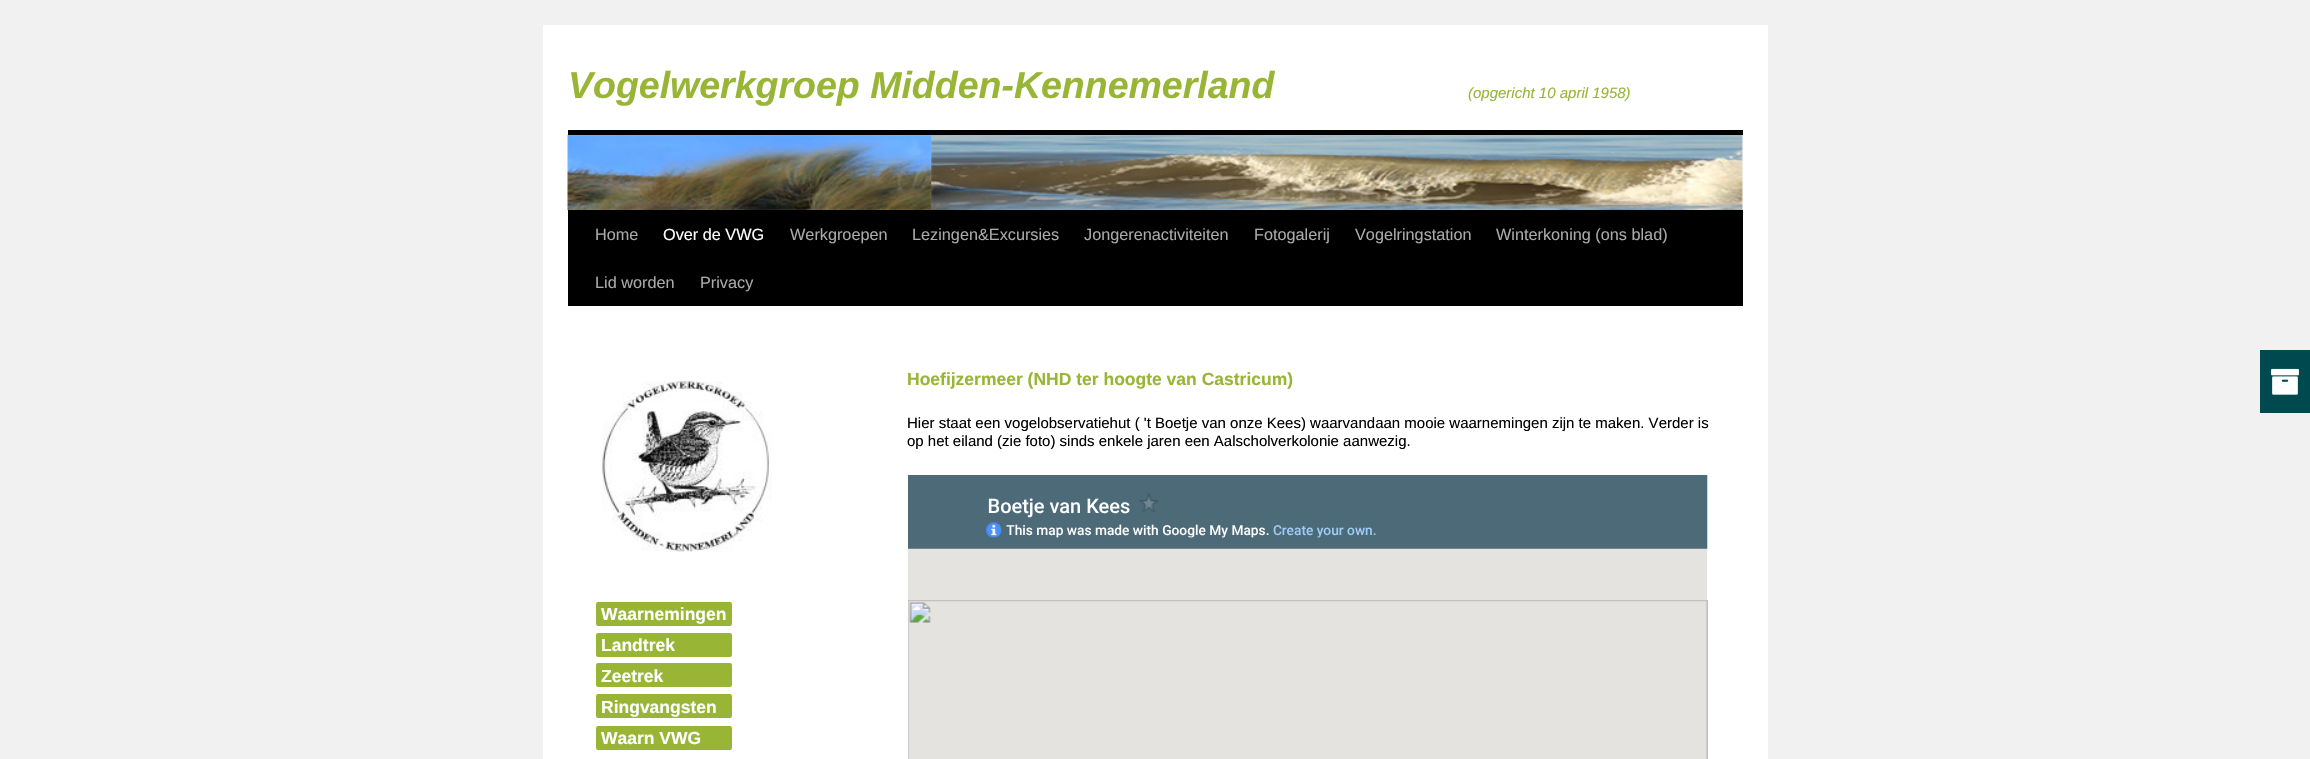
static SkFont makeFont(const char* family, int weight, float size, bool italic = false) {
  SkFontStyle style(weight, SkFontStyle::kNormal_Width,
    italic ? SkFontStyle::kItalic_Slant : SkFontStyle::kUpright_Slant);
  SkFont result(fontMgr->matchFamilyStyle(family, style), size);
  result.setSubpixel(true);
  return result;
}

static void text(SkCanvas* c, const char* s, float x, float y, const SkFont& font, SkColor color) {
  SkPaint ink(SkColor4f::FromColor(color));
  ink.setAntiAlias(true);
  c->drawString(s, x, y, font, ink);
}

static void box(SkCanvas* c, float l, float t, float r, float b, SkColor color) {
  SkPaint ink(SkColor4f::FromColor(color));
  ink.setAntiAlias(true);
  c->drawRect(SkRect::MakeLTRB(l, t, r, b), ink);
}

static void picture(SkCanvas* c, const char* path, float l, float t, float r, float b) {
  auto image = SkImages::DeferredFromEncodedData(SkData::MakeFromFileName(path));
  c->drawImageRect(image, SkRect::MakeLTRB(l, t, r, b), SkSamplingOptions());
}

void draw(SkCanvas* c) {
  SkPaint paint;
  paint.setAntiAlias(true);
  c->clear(0xfff1f1f1);
  box(c, 543, 25, 1768, 759, 0xffffffff);
  SkFont face1 = makeFont("Liberation Sans", 700, 37.5f, true);
  text(c, "Vogelwerkgroep Midden-Kennemerland", 568, 98, face1, 0xff98b535);
  SkFont face2 = makeFont("Liberation Sans", 400, 15, true);
  text(c, "(opgericht 10 april 1958)", 1468, 98, face2, 0xff98b535);
  box(c, 568, 130, 1743, 135, 0xff000000);
  box(c, 568, 210, 1743, 306, 0xff000000);
  picture(c, "img_01.png", 567, 135, 1743, 210);
  SkFont face3 = makeFont("Liberation Sans", 400, 16.25f);
  text(c, "Home", 595, 240, face3, 0xffaaaaaa);
  text(c, "Over de VWG", 663, 240, face3, 0xffffffff);
  text(c, "Werkgroepen", 790, 240, face3, 0xffaaaaaa);
  text(c, "Lezingen&Excursies", 912, 240, face3, 0xffaaaaaa);
  text(c, "Jongerenactiviteiten", 1084, 240, face3, 0xffaaaaaa);
  text(c, "Fotogalerij", 1254, 240, face3, 0xffaaaaaa);
  text(c, "Vogelringstation", 1355, 240, face3, 0xffaaaaaa);
  text(c, "Winterkoning (ons blad)", 1496, 240, face3, 0xffaaaaaa);
  text(c, "Lid worden", 595, 288, face3, 0xffaaaaaa);
  text(c, "Privacy", 700, 288, face3, 0xffaaaaaa);
  SkFont face4 = makeFont("Liberation Sans", 700, 17.5f);
  text(c, "Hoefijzermeer (NHD ter hoogte van Castricum)", 907, 385, face4, 0xff98b535);
  SkFont face5 = makeFont("Liberation Sans", 400, 15);
  text(c, "Hier staat een vogelobservatiehut ( 't Boetje van onze Kees) waarvandaan mooie waarnemingen zijn te maken. Verder is", 907, 428, face5, 0xff000000);
  text(c, "op het eiland (zie foto) sinds enkele jaren een Aalscholverkolonie aanwezig.", 907, 446, face5, 0xff000000);
  picture(c, "img_02.png", 907, 475, 1708, 759);
  picture(c, "img_03.png", 602, 381, 772, 552);
  paint.setColor(0xff98b535);
  c->drawRoundRect(SkRect::MakeLTRB(594.5f, 600.5f, 733.5f, 627.5f), 3.5f, 3.5f, paint);
  paint.setStyle(SkPaint::kStroke_Style);
  paint.setStrokeWidth(3);
  paint.setColor(0xffffffff);
  c->drawRoundRect(SkRect::MakeLTRB(594.5f, 600.5f, 733.5f, 627.5f), 3.5f, 3.5f, paint);
  text(c, "Waarnemingen", 601, 620, face4, 0xffffffff);
  paint.setStyle(SkPaint::kFill_Style);
  paint.setColor(0xff98b535);
  c->drawRoundRect(SkRect::MakeLTRB(594.5f, 631.5f, 733.5f, 658.5f), 3.5f, 3.5f, paint);
  paint.setStyle(SkPaint::kStroke_Style);
  paint.setColor(0xffffffff);
  c->drawRoundRect(SkRect::MakeLTRB(594.5f, 631.5f, 733.5f, 658.5f), 3.5f, 3.5f, paint);
  text(c, "Landtrek", 601, 651, face4, 0xffffffff);
  paint.setStyle(SkPaint::kFill_Style);
  paint.setColor(0xff98b535);
  c->drawRoundRect(SkRect::MakeLTRB(594.5f, 661.5f, 733.5f, 688.5f), 3.5f, 3.5f, paint);
  paint.setStyle(SkPaint::kStroke_Style);
  paint.setColor(0xffffffff);
  c->drawRoundRect(SkRect::MakeLTRB(594.5f, 661.5f, 733.5f, 688.5f), 3.5f, 3.5f, paint);
  text(c, "Zeetrek", 601, 682, face4, 0xffffffff);
  paint.setStyle(SkPaint::kFill_Style);
  paint.setColor(0xff98b535);
  c->drawRoundRect(SkRect::MakeLTRB(594.5f, 692.5f, 733.5f, 719.5f), 3.5f, 3.5f, paint);
  paint.setStyle(SkPaint::kStroke_Style);
  paint.setColor(0xffffffff);
  c->drawRoundRect(SkRect::MakeLTRB(594.5f, 692.5f, 733.5f, 719.5f), 3.5f, 3.5f, paint);
  text(c, "Ringvangsten", 601, 713, face4, 0xffffffff);
  paint.setStyle(SkPaint::kFill_Style);
  paint.setColor(0xff98b535);
  c->drawRoundRect(SkRect::MakeLTRB(594.5f, 724.5f, 733.5f, 751.5f), 3.5f, 3.5f, paint);
  paint.setStyle(SkPaint::kStroke_Style);
  paint.setColor(0xffffffff);
  c->drawRoundRect(SkRect::MakeLTRB(594.5f, 724.5f, 733.5f, 751.5f), 3.5f, 3.5f, paint);
  text(c, "Waarn VWG", 601, 744, face4, 0xffffffff);
  box(c, 2260, 350, 2310, 413, 0xff00494f);
  picture(c, "img_04.png", 2271, 368, 2299, 395);
}
